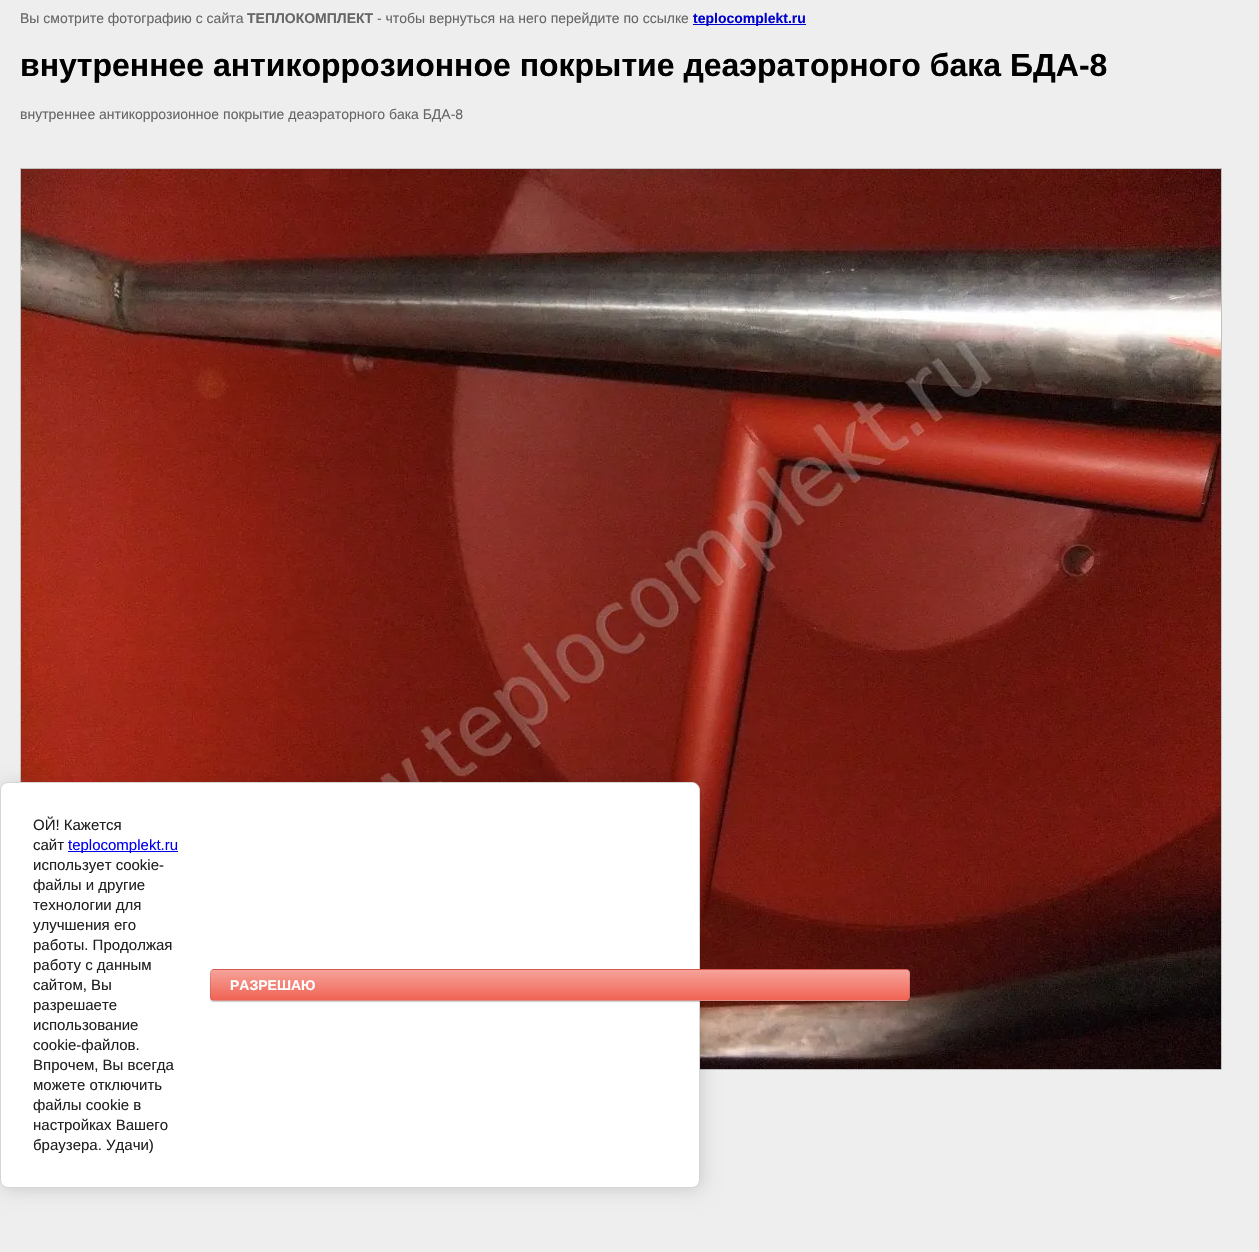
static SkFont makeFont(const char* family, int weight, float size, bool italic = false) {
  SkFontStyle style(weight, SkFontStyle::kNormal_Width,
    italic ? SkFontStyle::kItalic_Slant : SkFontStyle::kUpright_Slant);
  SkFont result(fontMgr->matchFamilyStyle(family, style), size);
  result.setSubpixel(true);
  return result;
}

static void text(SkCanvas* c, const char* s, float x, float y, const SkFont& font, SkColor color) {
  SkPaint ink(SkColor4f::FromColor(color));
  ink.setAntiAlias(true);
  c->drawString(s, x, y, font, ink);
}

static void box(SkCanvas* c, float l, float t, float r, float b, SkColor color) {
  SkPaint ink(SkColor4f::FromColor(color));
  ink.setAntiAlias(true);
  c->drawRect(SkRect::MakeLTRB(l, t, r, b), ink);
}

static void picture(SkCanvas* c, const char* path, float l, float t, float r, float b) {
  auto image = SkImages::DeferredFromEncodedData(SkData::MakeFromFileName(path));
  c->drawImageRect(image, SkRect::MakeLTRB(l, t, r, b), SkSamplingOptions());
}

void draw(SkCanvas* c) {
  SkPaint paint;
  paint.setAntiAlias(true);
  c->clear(0xffeeeeee);
  SkFont face1 = makeFont("Liberation Sans", 400, 14);
  text(c, "Вы смотрите фотографию с сайта", 20, 23, face1, 0xff666666);
  SkFont face2 = makeFont("Liberation Sans", 700, 14);
  text(c, "ТЕПЛОКОМПЛЕКТ", 247, 23, face2, 0xff666666);
  text(c, "- чтобы вернуться на него перейдите по ссылке", 377, 23, face1, 0xff666666);
  box(c, 693, 24, 806, 25, 0xff0000cc);
  text(c, "teplocomplekt.ru", 693, 23, face2, 0xff0000cc);
  SkFont face3 = makeFont("Liberation Sans", 700, 32);
  text(c, "внутреннее антикоррозионное покрытие деаэраторного бака БДА-8", 20, 76, face3, 0xff000000);
  text(c, "внутреннее антикоррозионное покрытие деаэраторного бака БДА-8", 20, 119, face1, 0xff666666);
  paint.setStyle(SkPaint::kStroke_Style);
  paint.setStrokeWidth(1);
  paint.setColor(0xffc0c0c0);
  c->drawRect(SkRect::MakeLTRB(20.5f, 168.5f, 1221.5f, 1069.5f), paint);
  picture(c, "img_01.png", 21, 169, 1221, 1069);
  paint.setStyle(SkPaint::kFill_Style);
  paint.setColor(0x24000000);
  paint.setMaskFilter(SkMaskFilter::MakeBlur(kNormal_SkBlurStyle, 9));
  c->drawRoundRect(SkRect::MakeLTRB(2, 784, 702, 1190), 8, 8, paint);
  paint.setMaskFilter(nullptr);
  paint.setColor(0xffffffff);
  c->drawRoundRect(SkRect::MakeLTRB(0.5f, 782.5f, 699.5f, 1187.5f), 7.5f, 7.5f, paint);
  paint.setStyle(SkPaint::kStroke_Style);
  paint.setColor(0xffd6d6d6);
  c->drawRoundRect(SkRect::MakeLTRB(0.5f, 782.5f, 699.5f, 1187.5f), 7.5f, 7.5f, paint);
  SkFont face4 = makeFont("Liberation Sans", 400, 15);
  text(c, "ОЙ! Кажется", 33, 830, face4, 0xff212121);
  text(c, "сайт", 33, 850, face4, 0xff212121);
  box(c, 68, 851, 178, 852, 0xff0000ee);
  text(c, "teplocomplekt.ru", 68, 850, face4, 0xff0000ee);
  text(c, "использует cookie-", 33, 870, face4, 0xff212121);
  text(c, "файлы и другие", 33, 890, face4, 0xff212121);
  text(c, "технологии для", 33, 910, face4, 0xff212121);
  text(c, "улучшения его", 33, 930, face4, 0xff212121);
  text(c, "работы. Продолжая", 33, 950, face4, 0xff212121);
  text(c, "работу с данным", 33, 970, face4, 0xff212121);
  text(c, "сайтом, Вы", 33, 990, face4, 0xff212121);
  text(c, "разрешаете", 33, 1010, face4, 0xff212121);
  text(c, "использование", 33, 1030, face4, 0xff212121);
  text(c, "cookie-файлов.", 33, 1050, face4, 0xff212121);
  text(c, "Впрочем, Вы всегда", 33, 1070, face4, 0xff212121);
  text(c, "можете отключить", 33, 1090, face4, 0xff212121);
  text(c, "файлы cookie в", 33, 1110, face4, 0xff212121);
  text(c, "настройках Вашего", 33, 1130, face4, 0xff212121);
  text(c, "браузера. Удачи)", 33, 1150, face4, 0xff212121);
  paint.setStyle(SkPaint::kFill_Style);
  paint.setColor(0x33000000);
  paint.setMaskFilter(SkMaskFilter::MakeBlur(kNormal_SkBlurStyle, 0.5f));
  c->drawRoundRect(SkRect::MakeLTRB(210, 970, 910, 1002), 4, 4, paint);
  paint.setMaskFilter(nullptr);
  c->save();
  c->clipPath(SkPathBuilder().moveTo(214, 969).lineTo(906, 969).cubicTo(908, 969, 910, 971, 910, 973).lineTo(910, 997).cubicTo(910, 999, 908, 1001, 906, 1001).lineTo(214, 1001).cubicTo(212, 1001, 210, 999, 210, 997).lineTo(210, 973).cubicTo(210, 971, 212, 969, 214, 969).close().detach(), true);
  {
    const SkColor colors[] = {0xfff6a39a, 0xfff06354};
    const float stops[] = {0, 1};
    const SkPoint ends[] = {{560, 940}, {560, 970}};
    paint.setShader(SkGradientShader::MakeLinear(ends, colors, stops, 2, SkTileMode::kClamp));
    paint.setAlpha(255);
  }
  c->drawRect(SkRect::MakeLTRB(210, 969, 910, 970), paint);
  {
    const SkColor colors[] = {0xfff6a39a, 0xfff06354};
    const float stops[] = {0, 1};
    const SkPoint ends[] = {{560, 970}, {560, 1000}};
    paint.setShader(SkGradientShader::MakeLinear(ends, colors, stops, 2, SkTileMode::kClamp));
    paint.setAlpha(255);
  }
  c->drawRect(SkRect::MakeLTRB(210, 970, 910, 1000), paint);
  {
    const SkColor colors[] = {0xfff6a39a, 0xfff06354};
    const float stops[] = {0, 1};
    const SkPoint ends[] = {{560, 1000}, {560, 1030}};
    paint.setShader(SkGradientShader::MakeLinear(ends, colors, stops, 2, SkTileMode::kClamp));
    paint.setAlpha(255);
  }
  c->drawRect(SkRect::MakeLTRB(210, 1000, 910, 1001), paint);
  c->restore();
  paint.setStyle(SkPaint::kStroke_Style);
  paint.setShader(nullptr);
  paint.setColor(0x1a000000);
  c->drawRoundRect(SkRect::MakeLTRB(210.5f, 969.5f, 909.5f, 1000.5f), 3.5f, 3.5f, paint);
  text(c, "РАЗРЕШАЮ", 230, 990, face2, 0xffffffff);
}
